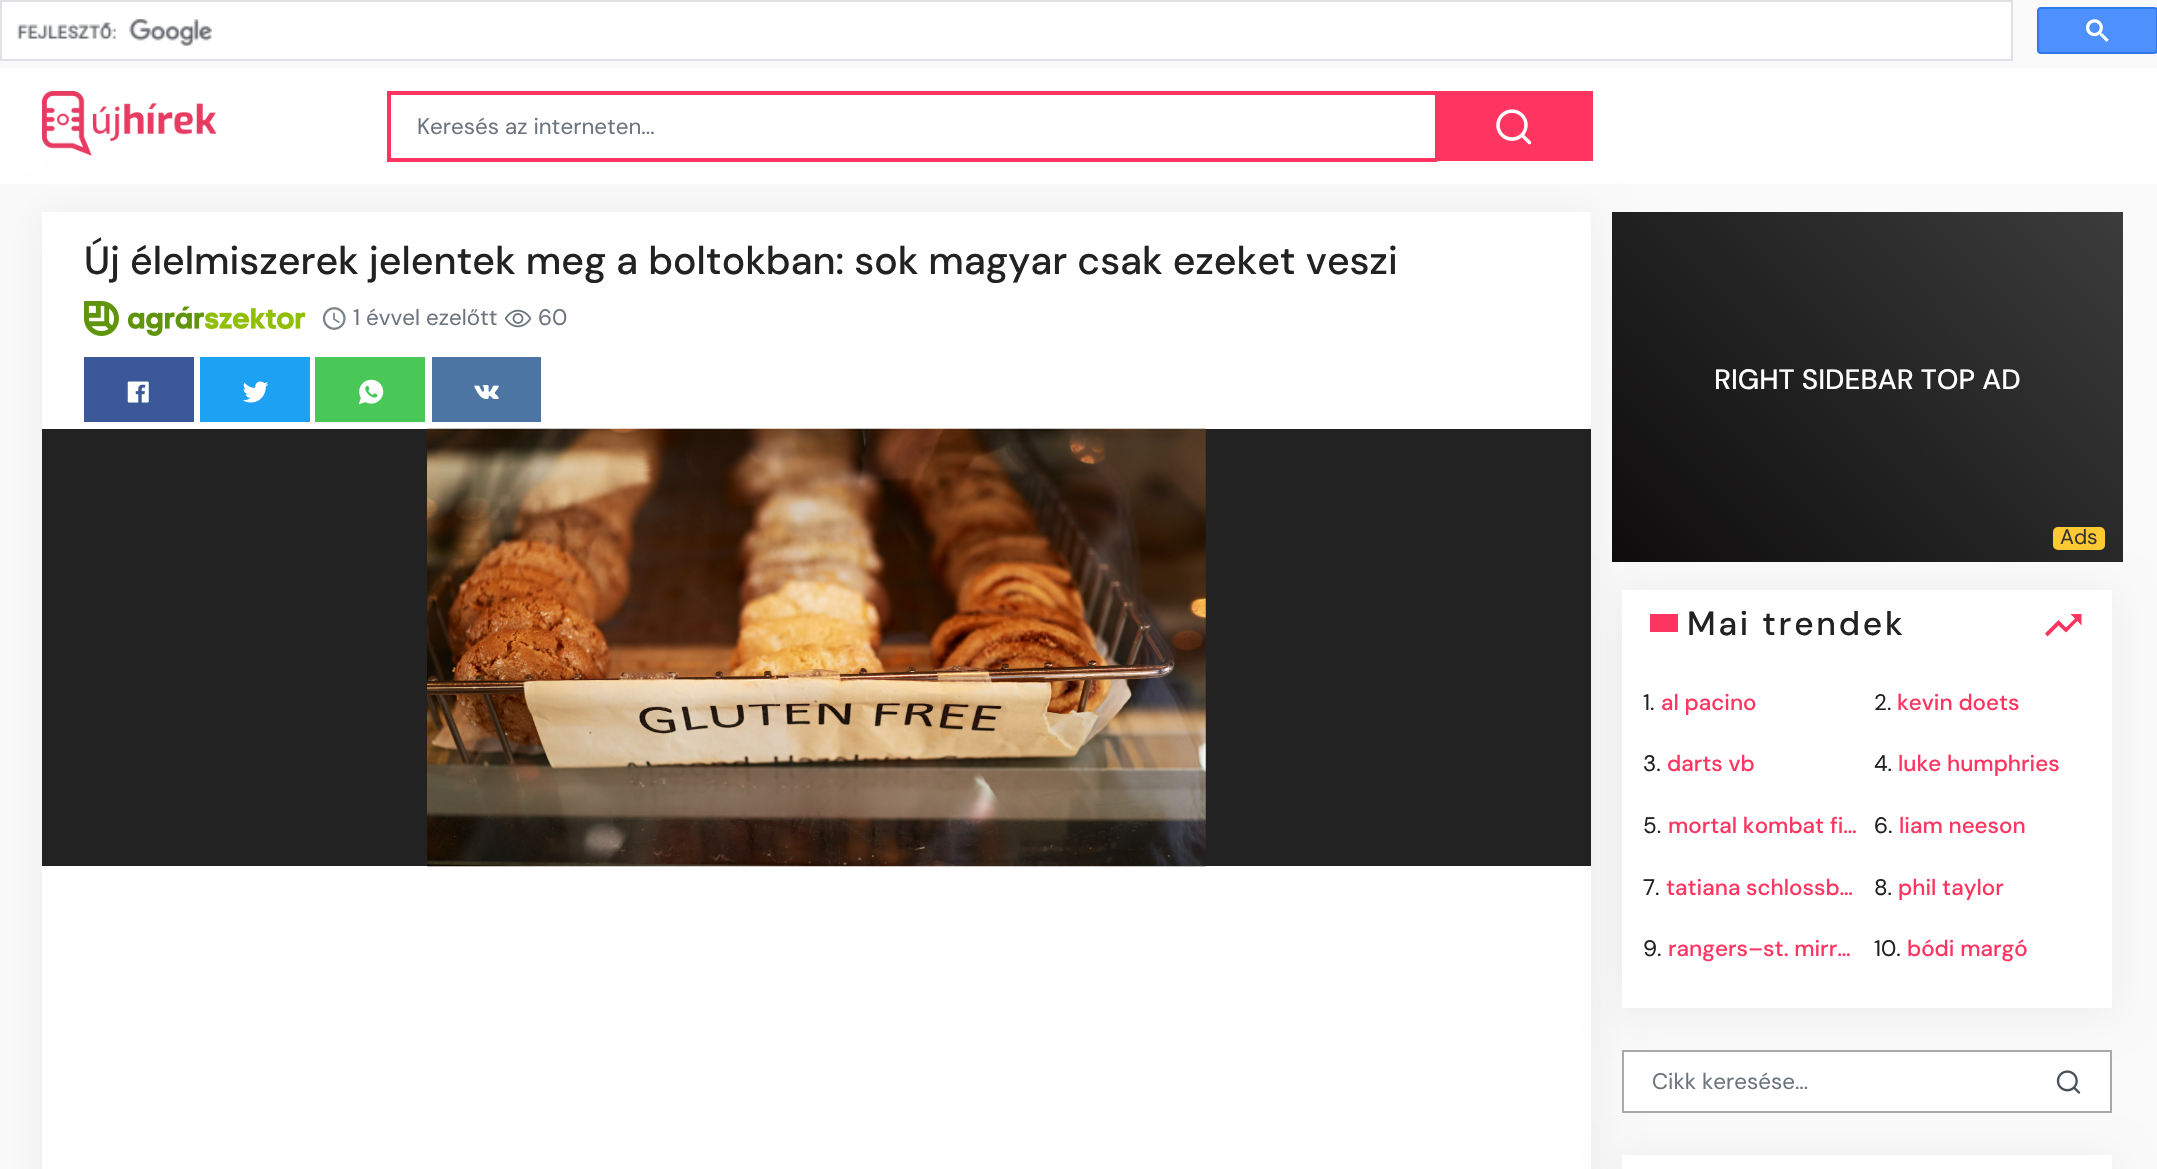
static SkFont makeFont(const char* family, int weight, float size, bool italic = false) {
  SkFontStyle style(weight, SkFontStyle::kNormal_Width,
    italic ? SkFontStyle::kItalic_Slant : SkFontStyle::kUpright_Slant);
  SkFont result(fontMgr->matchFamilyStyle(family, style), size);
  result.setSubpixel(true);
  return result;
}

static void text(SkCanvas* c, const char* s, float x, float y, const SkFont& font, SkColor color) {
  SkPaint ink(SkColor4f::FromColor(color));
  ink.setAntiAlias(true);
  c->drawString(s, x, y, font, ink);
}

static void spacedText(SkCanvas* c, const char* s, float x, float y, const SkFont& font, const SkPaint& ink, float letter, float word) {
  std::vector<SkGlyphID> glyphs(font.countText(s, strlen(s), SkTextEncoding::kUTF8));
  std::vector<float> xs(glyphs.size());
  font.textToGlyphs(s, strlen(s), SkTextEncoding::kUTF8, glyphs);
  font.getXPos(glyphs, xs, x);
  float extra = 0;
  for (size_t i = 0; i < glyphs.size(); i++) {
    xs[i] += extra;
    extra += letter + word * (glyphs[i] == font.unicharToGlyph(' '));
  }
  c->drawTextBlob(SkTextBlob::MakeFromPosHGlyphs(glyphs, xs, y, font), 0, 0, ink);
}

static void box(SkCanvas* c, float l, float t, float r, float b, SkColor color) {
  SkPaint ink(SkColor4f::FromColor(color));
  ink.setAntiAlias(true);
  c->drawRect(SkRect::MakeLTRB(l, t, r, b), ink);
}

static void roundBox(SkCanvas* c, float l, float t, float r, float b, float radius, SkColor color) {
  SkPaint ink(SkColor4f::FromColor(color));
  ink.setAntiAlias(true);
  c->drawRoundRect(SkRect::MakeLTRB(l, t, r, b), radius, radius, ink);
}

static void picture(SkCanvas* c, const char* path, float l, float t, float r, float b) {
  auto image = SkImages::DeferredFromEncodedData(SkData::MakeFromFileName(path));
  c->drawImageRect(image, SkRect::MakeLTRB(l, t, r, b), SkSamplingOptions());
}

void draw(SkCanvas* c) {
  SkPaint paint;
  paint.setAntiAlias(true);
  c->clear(0xfffafafa);
  paint.setColor(0xffffffff);
  c->drawRect(SkRect::MakeLTRB(1, 1, 2012, 60), paint);
  paint.setStyle(SkPaint::kStroke_Style);
  paint.setStrokeWidth(2);
  paint.setColor(0xffdfe1e5);
  c->drawRect(SkRect::MakeLTRB(1, 1, 2012, 60), paint);
  picture(c, "img_01.png", 17, 19, 212, 46);
  paint.setStyle(SkPaint::kFill_Style);
  paint.setColor(0xff4d90fe);
  c->drawRoundRect(SkRect::MakeLTRB(2038, 8, 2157, 53), 3, 3, paint);
  paint.setStyle(SkPaint::kStroke_Style);
  paint.setColor(0xff3079ed);
  c->drawRoundRect(SkRect::MakeLTRB(2038, 8, 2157, 53), 3, 3, paint);
  picture(c, "img_02.png", 2086, 19, 2109, 42);
  box(c, 0, 68, 2157, 184, 0xffffffff);
  picture(c, "img_03.png", 42, 91, 217, 156);
  box(c, 387, 91, 1437, 95, 0xfffe3560);
  box(c, 387, 158, 1437, 162, 0xfffe3560);
  box(c, 387, 91, 391, 161, 0xfffe3560);
  SkFont face1 = makeFont("DM Sans", 400, 22.4f);
  text(c, "Keresés az interneten...", 417, 134, face1, 0xff6c757d);
  paint.setStyle(SkPaint::kFill_Style);
  paint.setColor(0x0f000000);
  paint.setMaskFilter(SkMaskFilter::MakeBlur(kNormal_SkBlurStyle, 19));
  c->drawRect(SkRect::MakeLTRB(42, 215, 1591, 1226), paint);
  paint.setMaskFilter(nullptr);
  box(c, 1435, 91, 1593, 161, 0xfffe3560);
  picture(c, "img_04.png", 1496, 109, 1532, 145);
  box(c, 42, 212, 1591, 1169, 0xffffffff);
  SkFont face2 = makeFont("DM Sans", 500, 39.2f);
  text(c, "Új élelmiszerek jelentek meg a boltokban: sok magyar csak ezeket veszi", 84, 274, face2, 0xff222222);
  picture(c, "img_05.png", 84, 301, 306, 336);
  picture(c, "img_06.png", 322, 307, 346, 330);
  text(c, "1 évvel ezelőtt", 353, 325, face1, 0xff6c757d);
  picture(c, "img_07.png", 504, 309, 532, 328);
  text(c, "60", 538, 325, face1, 0xff6c757d);
  box(c, 84, 357, 194, 422, 0xff3b5998);
  picture(c, "img_08.png", 127, 381, 149, 403);
  box(c, 200, 357, 310, 422, 0xff1da1f2);
  picture(c, "img_09.png", 242, 381, 269, 403);
  box(c, 315, 357, 425, 422, 0xff4ac857);
  picture(c, "img_10.png", 358, 379, 384, 405);
  box(c, 432, 357, 541, 422, 0xff4c75a3);
  picture(c, "img_11.png", 474, 385, 499, 399);
  box(c, 42, 429, 1591, 866, 0xff222222);
  picture(c, "img_12.png", 427, 428, 1206, 867);
  paint.setMaskFilter(SkMaskFilter::MakeBlur(kNormal_SkBlurStyle, 19));
  c->drawRect(SkRect::MakeLTRB(1622, 593, 2112, 1012), paint);
  paint.setMaskFilter(nullptr);
  {
    const SkColor colors[] = {0xff0e0c0c, 0xff3c3c3c};
    const float stops[] = {0, 1};
    const SkPoint ends[] = {{1652, 602}, {2083, 172}};
    paint.setShader(SkGradientShader::MakeLinear(ends, colors, stops, 2, SkTileMode::kClamp));
    paint.setAlpha(255);
  }
  c->drawRect(SkRect::MakeLTRB(1612, 212, 2123, 562), paint);
  SkFont face3 = makeFont("DM Sans", 500, 28);
  text(c, "RIGHT SIDEBAR TOP AD", 1714, 389, face3, 0xffffffff);
  roundBox(c, 2053, 527, 2105, 550, 5, 0xffffc933);
  SkFont face4 = makeFont("DM Sans", 400, 21);
  text(c, "Ads", 2060, 544, face4, 0xff333333);
  box(c, 1622, 590, 2112, 1008, 0xffffffff);
  box(c, 1650, 614, 1678, 632, 0xfffe3560);
  SkFont face5 = makeFont("DM Sans", 500, 33.5f);
  paint.setShader(nullptr);
  paint.setColor(0xff222222);
  spacedText(c, "Mai trendek", 1687, 635, face5, paint, 2.75f, 0);
  paint.setColor(0xfffe3560);
  c->drawPath(SkPathBuilder().moveTo(2070.5f, 614).lineTo(2075, 618.5f).lineTo(2066, 627.5f).lineTo(2058.5f, 620).lineTo(2045, 633.5f).lineTo(2047.5f, 636.5f).lineTo(2058.5f, 625.5f).lineTo(2066, 632.5f).lineTo(2077.5f, 621).lineTo(2081.5f, 625.5f).lineTo(2081.5f, 614).close().detach(), paint);
  text(c, "1.", 1643, 710, face1, 0xff222222);
  SkFont face6 = makeFont("DM Sans", 500, 22.4f);
  text(c, "al pacino", 1661, 710, face6, 0xfffe3560);
  text(c, "2.", 1874, 710, face1, 0xff222222);
  text(c, "kevin doets", 1897, 710, face6, 0xfffe3560);
  text(c, "3.", 1643, 771, face1, 0xff222222);
  text(c, "darts vb", 1667, 771, face6, 0xfffe3560);
  text(c, "4.", 1874, 771, face1, 0xff222222);
  text(c, "luke humphries", 1898, 771, face6, 0xfffe3560);
  text(c, "5.", 1643, 833, face1, 0xff222222);
  text(c, "mortal kombat fi…", 1668, 833, face6, 0xfffe3560);
  text(c, "6.", 1874, 833, face1, 0xff222222);
  text(c, "liam neeson", 1899, 833, face6, 0xfffe3560);
  text(c, "7.", 1643, 895, face1, 0xff222222);
  text(c, "tatiana schlossb…", 1666, 895, face6, 0xfffe3560);
  text(c, "8.", 1874, 895, face1, 0xff222222);
  text(c, "phil taylor", 1898, 895, face6, 0xfffe3560);
  text(c, "9.", 1643, 956, face1, 0xff222222);
  text(c, "rangers–st. mirr…", 1668, 956, face6, 0xfffe3560);
  text(c, "10.", 1874, 956, face1, 0xff222222);
  text(c, "bódi margó", 1907, 956, face6, 0xfffe3560);
  paint.setColor(0x0f000000);
  paint.setMaskFilter(SkMaskFilter::MakeBlur(kNormal_SkBlurStyle, 19));
  c->drawRect(SkRect::MakeLTRB(1622, 1159, 2112, 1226), paint);
  paint.setMaskFilter(nullptr);
  paint.setColor(0xffffffff);
  c->drawRect(SkRect::MakeLTRB(2026, 1051, 2111, 1112), paint);
  paint.setStyle(SkPaint::kStroke_Style);
  paint.setColor(0xffa9a9a9);
  c->drawRect(SkRect::MakeLTRB(2026, 1051, 2111, 1112), paint);
  box(c, 1624, 1052, 2027, 1111, 0xffffffff);
  box(c, 1622, 1050, 2027, 1052, 0xffa9a9a9);
  box(c, 1622, 1111, 2027, 1113, 0xffa9a9a9);
  box(c, 1622, 1050, 1624, 1113, 0xffa9a9a9);
  text(c, "Cikk keresése...", 1652, 1089, face1, 0xff6c757d);
  picture(c, "img_13.png", 2056, 1070, 2081, 1094);
  box(c, 1622, 1155, 2112, 1169, 0xffffffff);
}
